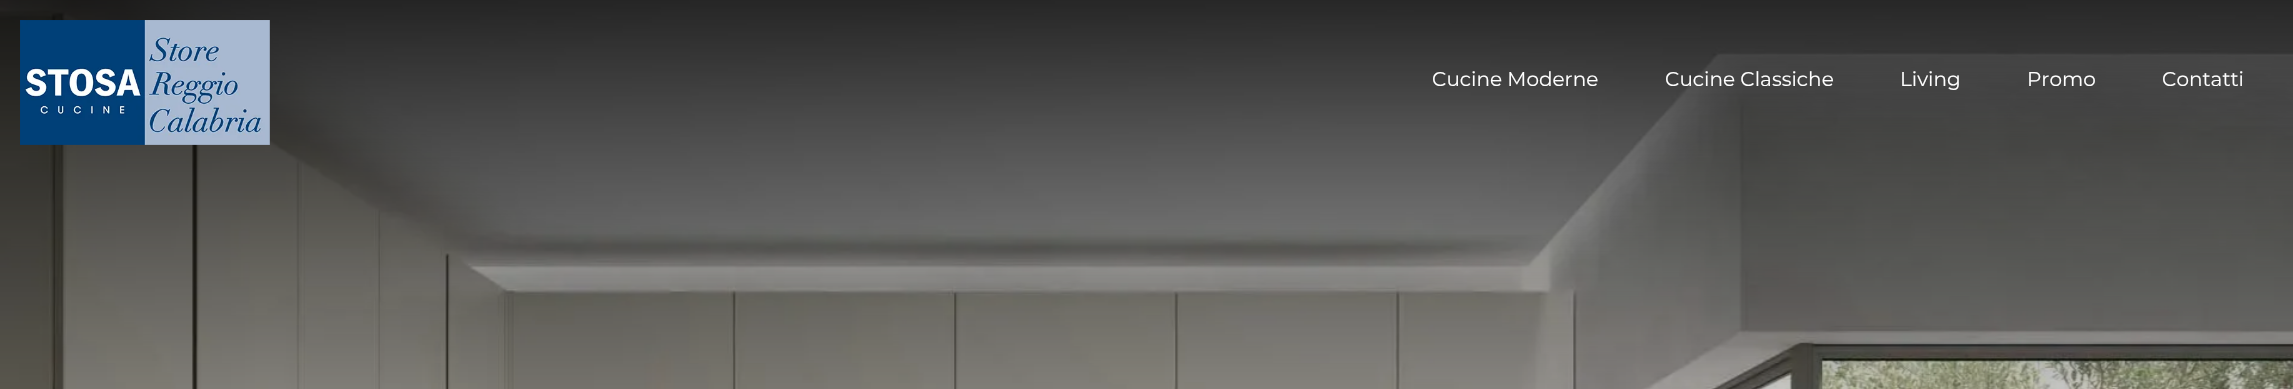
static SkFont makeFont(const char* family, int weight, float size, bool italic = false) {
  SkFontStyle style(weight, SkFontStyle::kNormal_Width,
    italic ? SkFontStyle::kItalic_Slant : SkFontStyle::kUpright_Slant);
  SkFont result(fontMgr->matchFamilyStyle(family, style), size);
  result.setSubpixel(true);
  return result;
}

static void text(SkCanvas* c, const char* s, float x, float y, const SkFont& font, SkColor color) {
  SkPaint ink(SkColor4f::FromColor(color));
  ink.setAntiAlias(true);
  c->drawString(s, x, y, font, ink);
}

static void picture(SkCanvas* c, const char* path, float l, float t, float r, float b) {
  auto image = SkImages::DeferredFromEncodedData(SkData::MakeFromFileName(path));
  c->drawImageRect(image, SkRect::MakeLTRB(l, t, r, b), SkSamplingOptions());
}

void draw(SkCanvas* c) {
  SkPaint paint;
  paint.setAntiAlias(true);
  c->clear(0xffffffff);
  picture(c, "img_01.png", 0, 0, 2293, 389);
  picture(c, "img_02.png", 20, 20, 270, 145);
  SkFont face1 = makeFont("Montserrat", 400, 20);
  text(c, "Cucine Moderne", 1432, 86, face1, 0xffffffff);
  text(c, "Cucine Classiche", 1665, 86, face1, 0xffffffff);
  text(c, "Living", 1900, 86, face1, 0xffffffff);
  text(c, "Promo", 2027, 86, face1, 0xffffffff);
  text(c, "Contatti", 2162, 86, face1, 0xffffffff);
}
